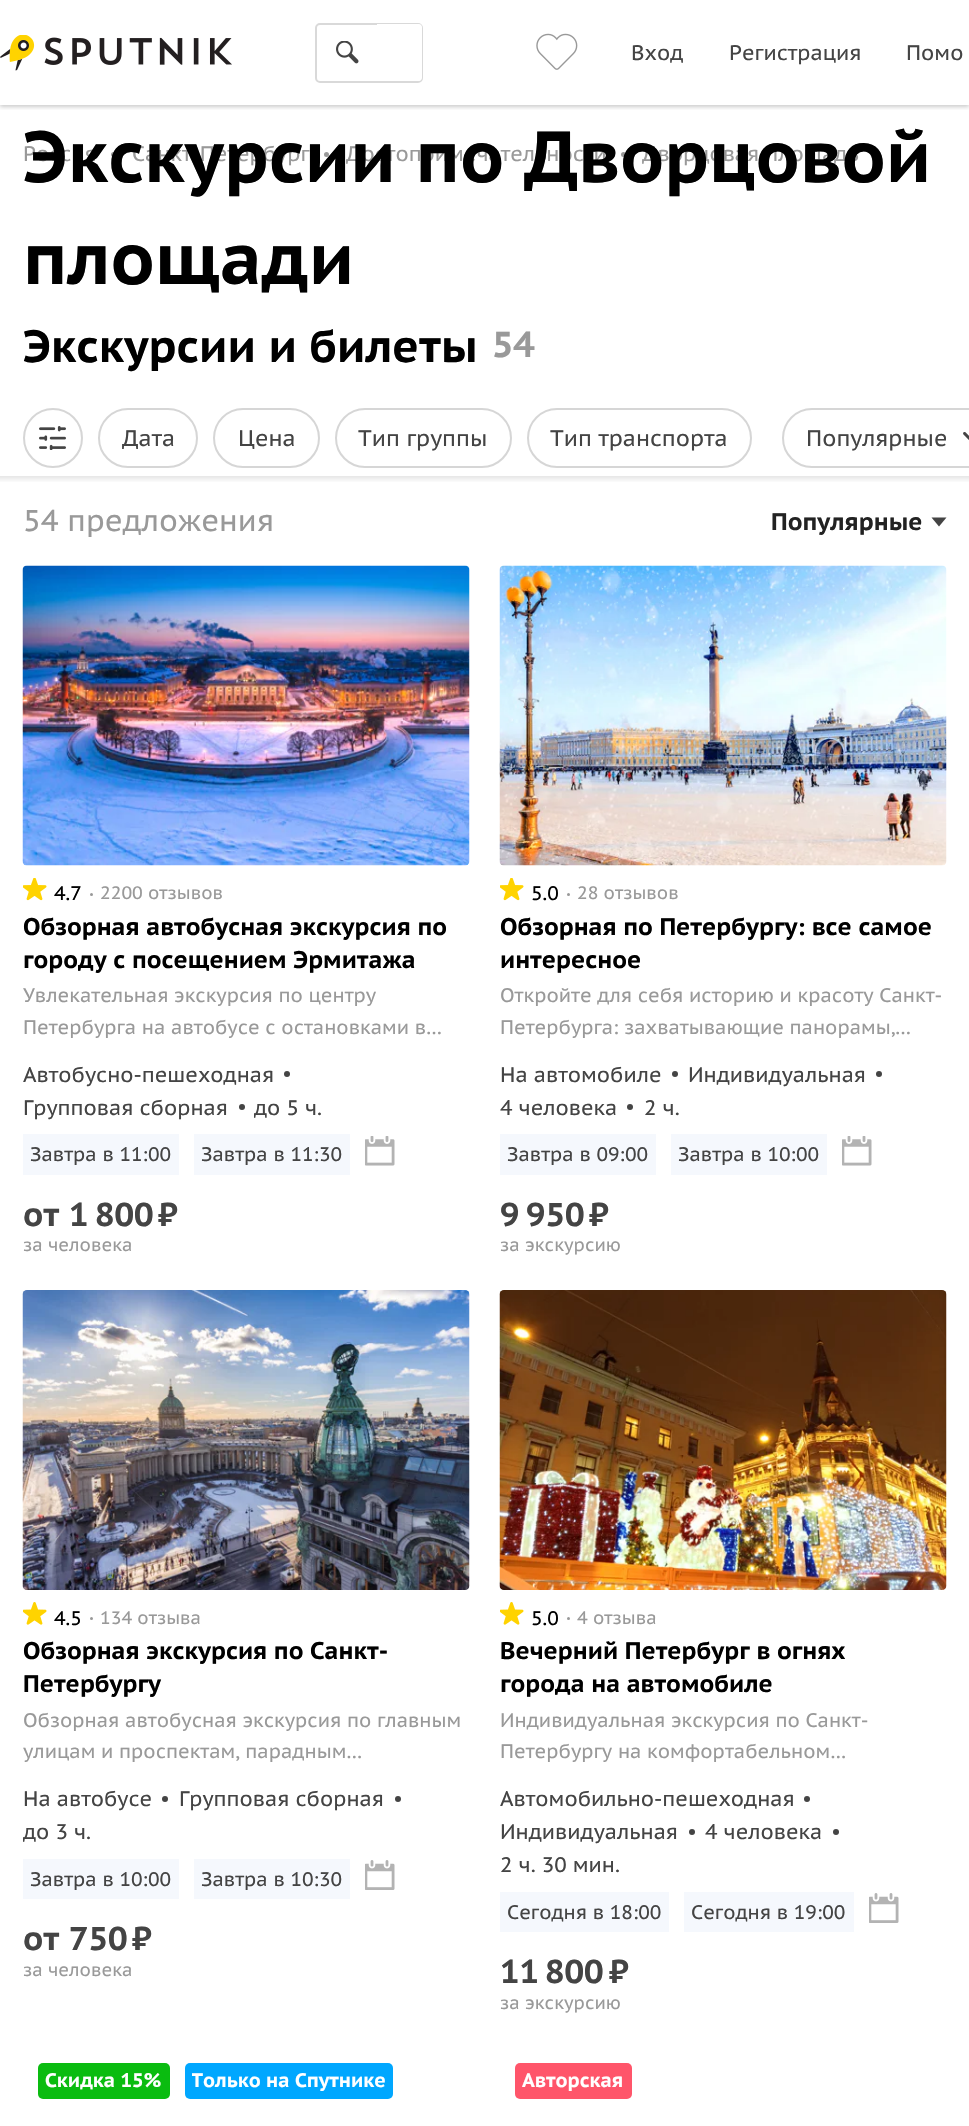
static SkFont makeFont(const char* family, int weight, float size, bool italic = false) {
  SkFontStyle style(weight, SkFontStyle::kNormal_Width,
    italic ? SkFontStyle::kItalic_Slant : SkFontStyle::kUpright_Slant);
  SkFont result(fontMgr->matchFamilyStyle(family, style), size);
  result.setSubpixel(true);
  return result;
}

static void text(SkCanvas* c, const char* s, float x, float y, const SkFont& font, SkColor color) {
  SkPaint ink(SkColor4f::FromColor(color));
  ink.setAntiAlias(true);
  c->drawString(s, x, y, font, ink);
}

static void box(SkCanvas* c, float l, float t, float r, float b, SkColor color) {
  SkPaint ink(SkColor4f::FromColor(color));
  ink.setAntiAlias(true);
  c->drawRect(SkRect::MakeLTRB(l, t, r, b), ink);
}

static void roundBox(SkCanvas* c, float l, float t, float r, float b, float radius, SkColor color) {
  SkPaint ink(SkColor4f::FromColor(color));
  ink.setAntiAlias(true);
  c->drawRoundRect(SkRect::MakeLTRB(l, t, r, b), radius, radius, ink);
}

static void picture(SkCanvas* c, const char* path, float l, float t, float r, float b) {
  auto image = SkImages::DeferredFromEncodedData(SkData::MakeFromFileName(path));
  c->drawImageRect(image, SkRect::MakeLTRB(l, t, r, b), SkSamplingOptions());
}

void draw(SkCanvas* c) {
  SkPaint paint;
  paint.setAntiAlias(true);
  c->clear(0xffffffff);
  c->save();
  c->clipRect(SkRect::MakeLTRB(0, 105, 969, 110));
  paint.setColor(0x33000000);
  paint.setMaskFilter(SkMaskFilter::MakeBlur(kNormal_SkBlurStyle, 2));
  c->drawRect(SkRect::MakeLTRB(0, 2, 969, 107), paint);
  paint.setMaskFilter(nullptr);
  c->restore();
  picture(c, "img_01.png", 0, 35, 232, 71);
  picture(c, "img_02.png", 336, 41, 359, 64);
  paint.setStyle(SkPaint::kStroke_Style);
  paint.setStrokeWidth(2);
  paint.setColor(0xffd9d9d9);
  c->drawRoundRect(SkRect::MakeLTRB(316, 24, 422, 82), 4, 4, paint);
  paint.setStyle(SkPaint::kFill_Style);
  paint.setColor(0xffffffff);
  c->drawPath(SkPathBuilder().moveTo(377, 24).lineTo(419, 24).cubicTo(420.5f, 24, 422, 25.5f, 422, 27).lineTo(422, 78).cubicTo(422, 79.5f, 420.5f, 81, 419, 81).lineTo(377, 81).close().detach(), paint);
  picture(c, "img_03.png", 536, 33, 578, 70);
  SkFont face1 = makeFont("PT Sans Caption", 400, 21);
  text(c, "Вход", 631, 60, face1, 0xff444444);
  text(c, "Регистрация", 729, 60, face1, 0xff444444);
  text(c, "Помо", 906, 60, face1, 0xff444444);
  text(c, "Россия", 23, 161, face1, 0xff999999);
  paint.setColor(0xff999999);
  c->drawCircle(113.5f, 154.5f, 2.5f, paint);
  text(c, "Санкт-Петербург", 132, 161, face1, 0xff999999);
  c->drawCircle(326.5f, 154.5f, 2.5f, paint);
  text(c, "Достопримечательности", 346, 161, face1, 0xff999999);
  c->drawCircle(623.5f, 154.5f, 2.5f, paint);
  text(c, "Дворцовая площадь", 642, 161, face1, 0xff999999);
  SkFont face2 = makeFont("PT Sans Caption", 700, 72);
  text(c, "Экскурсии по Дворцовой", 23, 182, face2, 0xff000000);
  text(c, "площади", 23, 284, face2, 0xff000000);
  SkFont face3 = makeFont("PT Sans Caption", 700, 45);
  text(c, "Экскурсии и билеты", 23, 362, face3, 0xff000000);
  SkFont face4 = makeFont("PT Sans Caption", 700, 36);
  text(c, "54", 492, 357, face4, 0xff999999);
  paint.setStyle(SkPaint::kStroke_Style);
  paint.setColor(0xffd6d6d6);
  c->drawCircle(53, 438, 29, paint);
  picture(c, "img_04.png", 39, 426, 66, 450);
  c->drawRoundRect(SkRect::MakeLTRB(99, 409, 197, 467), 29, 29, paint);
  SkFont face5 = makeFont("PT Sans Caption", 400, 22.5f);
  text(c, "Дата", 122, 446, face5, 0xff444444);
  c->drawRoundRect(SkRect::MakeLTRB(214, 409, 319, 467), 29, 29, paint);
  text(c, "Цена", 238, 446, face5, 0xff444444);
  c->drawRoundRect(SkRect::MakeLTRB(336, 409, 511, 467), 29, 29, paint);
  text(c, "Тип группы", 358, 446, face5, 0xff444444);
  c->drawRoundRect(SkRect::MakeLTRB(528, 409, 751, 467), 29, 29, paint);
  text(c, "Тип транспорта", 550, 446, face5, 0xff444444);
  c->drawRoundRect(SkRect::MakeLTRB(783, 409, 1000, 467), 29, 29, paint);
  text(c, "Популярные", 806, 446, face5, 0xff444444);
  picture(c, "img_05.png", 963, 432, 969, 440);
  paint.setStyle(SkPaint::kFill_Style);
  {
    const SkColor colors[] = {0xffffffff, 0xffe6e6e6};
    const float stops[] = {0, 1};
    const SkPoint ends[] = {{485, 483}, {485, 476}};
    paint.setShader(SkGradientShader::MakeLinear(ends, colors, stops, 2, SkTileMode::kClamp));
    paint.setAlpha(255);
  }
  c->drawRect(SkRect::MakeLTRB(0, 476, 969, 482), paint);
  SkFont face6 = makeFont("PT Sans Caption", 400, 30);
  text(c, "54 предложения", 23, 531, face6, 0xff999999);
  SkFont face7 = makeFont("PT Sans Caption", 700, 24);
  text(c, "Популярные", 771, 530, face7, 0xff222222);
  paint.setShader(nullptr);
  paint.setColor(0xff444444);
  c->drawPath(SkPathBuilder().moveTo(931.5f, 517.5f).lineTo(946.5f, 517.5f).lineTo(939, 526.5f).close().detach(), paint);
  picture(c, "img_06.png", 22, 565, 470, 866);
  picture(c, "img_07.png", 23, 878, 47, 901);
  SkFont face8 = makeFont("PT Sans Caption", 400, 19.5f);
  text(c, "4.7", 54, 900, face8, 0xff000000);
  paint.setColor(0xff999999);
  c->drawCircle(91.5f, 894.5f, 1.5f, paint);
  SkFont face9 = makeFont("PT Sans Caption", 400, 18);
  text(c, "2200 отзывов", 100, 899, face9, 0xff999999);
  text(c, "Обзорная автобусная экскурсия по", 23, 935, face7, 0xff000000);
  text(c, "городу с посещением Эрмитажа", 23, 968, face7, 0xff000000);
  text(c, "Увлекательная экскурсия по центру", 23, 1002, face8, 0xff999999);
  text(c, "Петербурга на автобусе с остановками в…", 23, 1034, face8, 0xff999999);
  text(c, "Автобусно-пешеходная", 23, 1082, face1, 0xff444444);
  paint.setColor(0xff444444);
  c->drawCircle(287, 1074, 3, paint);
  text(c, "Групповая сборная", 23, 1115, face1, 0xff444444);
  c->drawCircle(242, 1107, 3, paint);
  text(c, "до 5 ч.", 254, 1115, face1, 0xff444444);
  picture(c, "img_08.png", 365, 1136, 395, 1166);
  box(c, 23, 1134, 179, 1175, 0xfff5f8fd);
  text(c, "Завтра в 11:00", 30, 1161, face8, 0xff444444);
  box(c, 194, 1134, 350, 1175, 0xfff5f8fd);
  text(c, "Завтра в 11:30", 201, 1161, face8, 0xff444444);
  SkFont face10 = makeFont("PT Sans Caption", 700, 33);
  text(c, "от", 23, 1226, face10, 0xff444444);
  text(c, "1", 69, 1226, face10, 0xff444444);
  text(c, "800", 95, 1226, face10, 0xff444444);
  text(c, "₽", 158, 1226, face10, 0xff444444);
  text(c, "за человека", 23, 1251, face9, 0xff999999);
  picture(c, "img_09.png", 499, 565, 947, 866);
  picture(c, "img_07.png", 500, 878, 524, 901);
  text(c, "5.0", 531, 900, face8, 0xff000000);
  paint.setColor(0xff999999);
  c->drawCircle(568.5f, 894.5f, 1.5f, paint);
  text(c, "28 отзывов", 577, 899, face9, 0xff999999);
  text(c, "Обзорная по Петербургу: все самое", 500, 935, face7, 0xff000000);
  text(c, "интересное", 500, 968, face7, 0xff000000);
  text(c, "Откройте для себя историю и красоту Санкт-", 500, 1002, face8, 0xff999999);
  text(c, "Петербурга: захватывающие панорамы,…", 500, 1034, face8, 0xff999999);
  text(c, "На автомобиле", 500, 1082, face1, 0xff444444);
  paint.setColor(0xff444444);
  c->drawCircle(675, 1074, 3, paint);
  text(c, "Индивидуальная", 688, 1082, face1, 0xff444444);
  c->drawCircle(879, 1074, 3, paint);
  text(c, "4 человека", 500, 1115, face1, 0xff444444);
  c->drawCircle(630, 1107, 3, paint);
  text(c, "2 ч.", 644, 1115, face1, 0xff444444);
  picture(c, "img_08.png", 842, 1136, 872, 1166);
  box(c, 500, 1134, 656, 1175, 0xfff5f8fd);
  text(c, "Завтра в 09:00", 507, 1161, face8, 0xff444444);
  box(c, 671, 1134, 827, 1175, 0xfff5f8fd);
  text(c, "Завтра в 10:00", 678, 1161, face8, 0xff444444);
  text(c, "9", 500, 1226, face10, 0xff444444);
  text(c, "950", 526, 1226, face10, 0xff444444);
  text(c, "₽", 589, 1226, face10, 0xff444444);
  text(c, "за экскурсию", 500, 1251, face9, 0xff999999);
  picture(c, "img_10.png", 22, 1290, 470, 1590);
  picture(c, "img_11.png", 23, 1602, 47, 1625);
  text(c, "4.5", 54, 1625, face8, 0xff000000);
  paint.setColor(0xff999999);
  c->drawCircle(91.5f, 1618.5f, 1.5f, paint);
  text(c, "134 отзыва", 100, 1624, face9, 0xff999999);
  text(c, "Обзорная экскурсия по Санкт-", 23, 1659, face7, 0xff000000);
  text(c, "Петербургу", 23, 1692, face7, 0xff000000);
  text(c, "Обзорная автобусная экскурсия по главным", 23, 1727, face8, 0xff999999);
  text(c, "улицам и проспектам, парадным…", 23, 1758, face8, 0xff999999);
  text(c, "На автобусе", 23, 1806, face1, 0xff444444);
  paint.setColor(0xff444444);
  c->drawCircle(165, 1799, 3, paint);
  text(c, "Групповая сборная", 179, 1806, face1, 0xff444444);
  c->drawCircle(398, 1799, 3, paint);
  c->save();
  c->clipRect(SkRect::MakeLTRB(23, 1290, 470, 1985));
  text(c, "до 3 ч.", 23, 1839, face1, 0xff444444);
  c->restore();
  picture(c, "img_12.png", 365, 1860, 395, 1890);
  box(c, 23, 1859, 179, 1899, 0xfff5f8fd);
  text(c, "Завтра в 10:00", 30, 1886, face8, 0xff444444);
  box(c, 194, 1859, 350, 1899, 0xfff5f8fd);
  text(c, "Завтра в 10:30", 201, 1886, face8, 0xff444444);
  text(c, "от", 23, 1950, face10, 0xff444444);
  text(c, "750", 69, 1950, face10, 0xff444444);
  text(c, "₽", 132, 1950, face10, 0xff444444);
  text(c, "за человека", 23, 1976, face9, 0xff999999);
  picture(c, "img_13.png", 499, 1290, 947, 1590);
  picture(c, "img_11.png", 500, 1602, 524, 1625);
  text(c, "5.0", 531, 1625, face8, 0xff000000);
  paint.setColor(0xff999999);
  c->drawCircle(568.5f, 1618.5f, 1.5f, paint);
  text(c, "4 отзыва", 577, 1624, face9, 0xff999999);
  text(c, "Вечерний Петербург в огнях", 500, 1659, face7, 0xff000000);
  text(c, "города на автомобиле", 500, 1692, face7, 0xff000000);
  text(c, "Индивидуальная экскурсия по Санкт-", 500, 1727, face8, 0xff999999);
  text(c, "Петербургу на комфортабельном…", 500, 1758, face8, 0xff999999);
  text(c, "Автомобильно-пешеходная", 500, 1806, face1, 0xff444444);
  paint.setColor(0xff444444);
  c->drawCircle(807, 1799, 3, paint);
  text(c, "Индивидуальная", 500, 1839, face1, 0xff444444);
  c->drawCircle(692, 1832, 3, paint);
  text(c, "4 человека", 705, 1839, face1, 0xff444444);
  c->drawCircle(836, 1832, 3, paint);
  text(c, "2 ч. 30 мин.", 500, 1872, face1, 0xff444444);
  picture(c, "img_12.png", 869, 1893, 899, 1923);
  box(c, 500, 1892, 669, 1932, 0xfff5f8fd);
  text(c, "Сегодня в 18:00", 507, 1919, face8, 0xff444444);
  box(c, 684, 1892, 854, 1932, 0xfff5f8fd);
  text(c, "Сегодня в 19:00", 691, 1919, face8, 0xff444444);
  text(c, "11", 500, 1983, face10, 0xff444444);
  text(c, "800", 545, 1983, face10, 0xff444444);
  text(c, "₽", 609, 1983, face10, 0xff444444);
  text(c, "за экскурсию", 500, 2009, face9, 0xff999999);
  roundBox(c, 38, 2063, 170, 2099, 5, 0xff0abc10);
  SkFont face11 = makeFont("PT Sans Caption", 700, 19.5f);
  text(c, "Скидка 15%", 45, 2087, face11, 0xffffffff);
  roundBox(c, 185, 2063, 393, 2099, 5, 0xff00a7ff);
  c->save();
  c->clipRect(SkRect::MakeLTRB(192, 2063, 386, 2099));
  text(c, "Только на Спутнике", 191, 2087, face11, 0xffffffff);
  c->restore();
  roundBox(c, 515, 2063, 632, 2099, 5, 0xffff556a);
  text(c, "Авторская", 522, 2087, face11, 0xffffffff);
}
